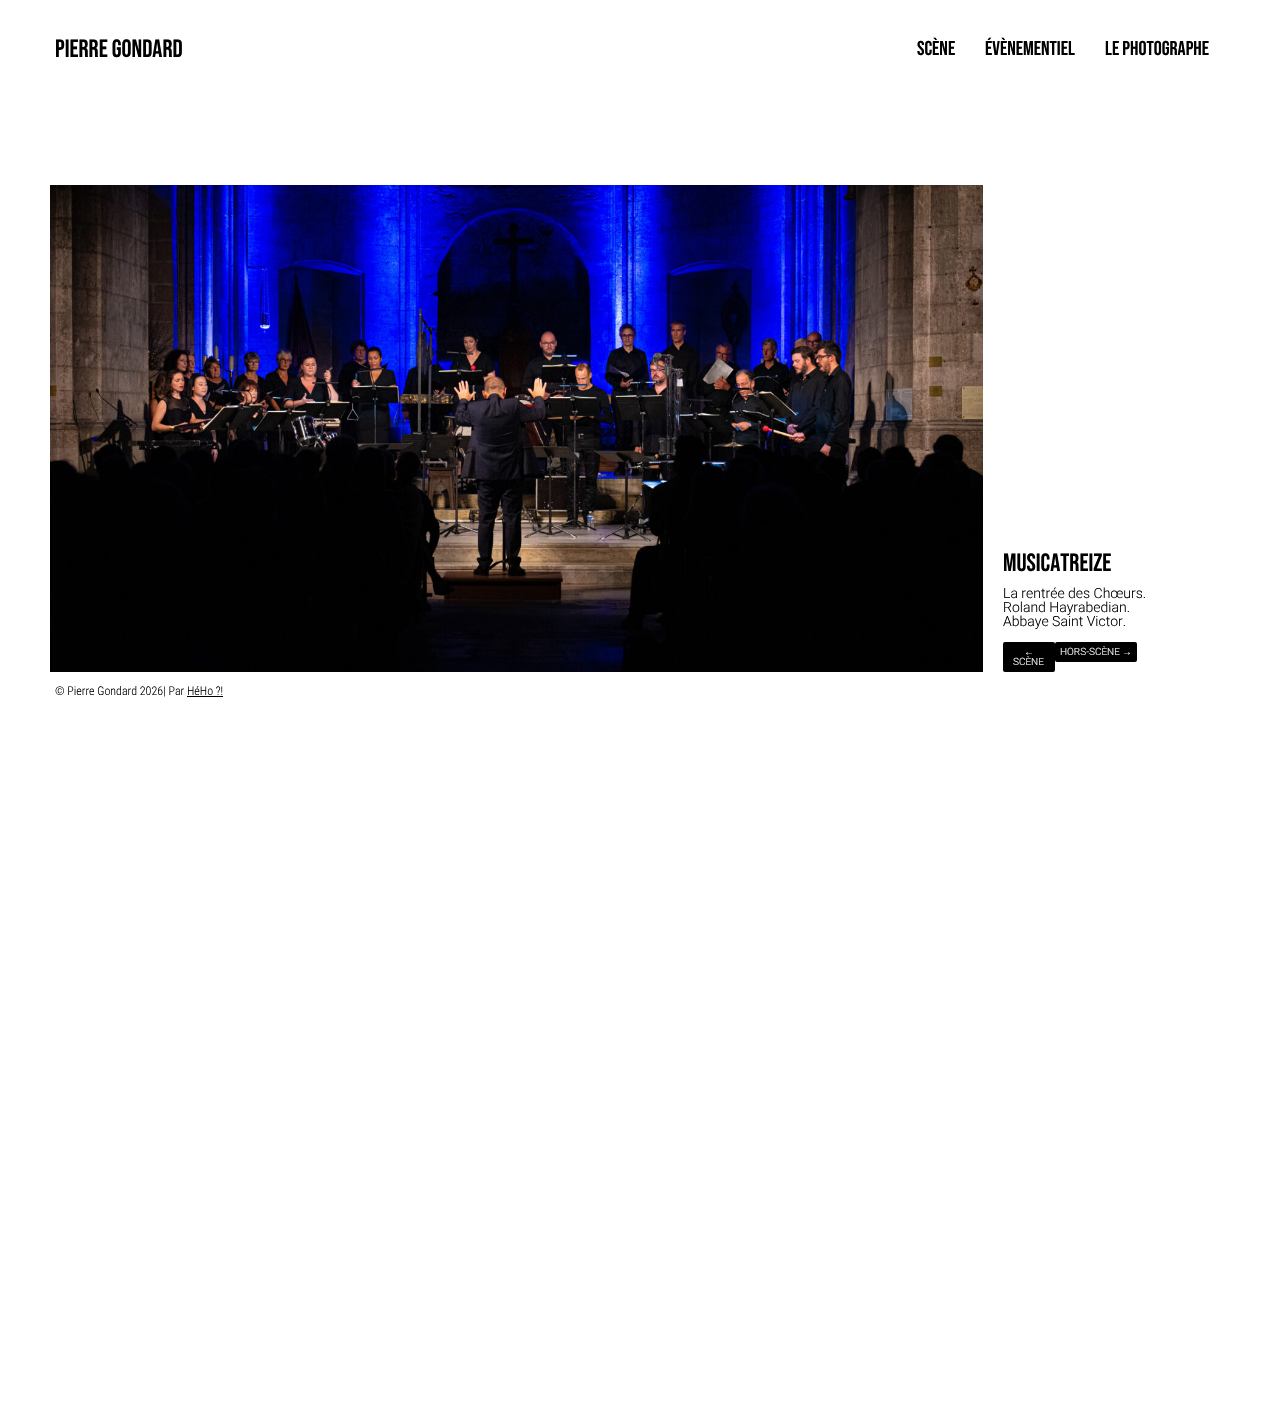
static SkFont makeFont(const char* family, int weight, float size, bool italic = false) {
  SkFontStyle style(weight, SkFontStyle::kNormal_Width,
    italic ? SkFontStyle::kItalic_Slant : SkFontStyle::kUpright_Slant);
  SkFont result(fontMgr->matchFamilyStyle(family, style), size);
  result.setSubpixel(true);
  return result;
}

static void text(SkCanvas* c, const char* s, float x, float y, const SkFont& font, SkColor color) {
  SkPaint ink(SkColor4f::FromColor(color));
  ink.setAntiAlias(true);
  c->drawString(s, x, y, font, ink);
}

static void box(SkCanvas* c, float l, float t, float r, float b, SkColor color) {
  SkPaint ink(SkColor4f::FromColor(color));
  ink.setAntiAlias(true);
  c->drawRect(SkRect::MakeLTRB(l, t, r, b), ink);
}

static void roundBox(SkCanvas* c, float l, float t, float r, float b, float radius, SkColor color) {
  SkPaint ink(SkColor4f::FromColor(color));
  ink.setAntiAlias(true);
  c->drawRoundRect(SkRect::MakeLTRB(l, t, r, b), radius, radius, ink);
}

static void picture(SkCanvas* c, const char* path, float l, float t, float r, float b) {
  auto image = SkImages::DeferredFromEncodedData(SkData::MakeFromFileName(path));
  c->drawImageRect(image, SkRect::MakeLTRB(l, t, r, b), SkSamplingOptions());
}

void draw(SkCanvas* c) {
  SkPaint paint;
  paint.setAntiAlias(true);
  c->clear(0xffffffff);
  SkFont face1 = makeFont("Bebas Neue", 400, 25);
  text(c, "PIERRE GONDARD", 55, 57, face1, 0xff000000);
  SkFont face2 = makeFont("Bebas Neue", 400, 20);
  text(c, "SCÈNE", 917, 55, face2, 0xff000000);
  text(c, "ÉVÈNEMENTIEL", 985, 55, face2, 0xff000000);
  text(c, "LE PHOTOGRAPHE", 1105, 55, face2, 0xff000000);
  picture(c, "img_01.png", 50, 185, 983, 672);
  text(c, "MUSICATREIZE", 1003, 571, face1, 0xff000000);
  SkFont face3 = makeFont("Roboto", 300, 14);
  text(c, "La rentrée des Chœurs.", 1003, 598, face3, 0xff000000);
  text(c, "Roland Hayrabedian.", 1003, 612, face3, 0xff000000);
  text(c, "Abbaye Saint Victor.", 1003, 626, face3, 0xff000000);
  roundBox(c, 1055, 642, 1137, 662, 2, 0xff000000);
  SkFont face4 = makeFont("Roboto", 300, 10);
  text(c, "HORS-SCÈNE", 1060, 655, face4, 0xffffffff);
  SkFont face5 = makeFont("Liberation Sans", 400, 10);
  text(c, "→", 1122, 655, face5, 0xffffffff);
  roundBox(c, 1003, 642, 1055, 672, 2, 0xff000000);
  text(c, "←", 1024, 655, face5, 0xffffffff);
  text(c, "SCÈNE", 1013, 665, face4, 0xffffffff);
  SkFont face6 = makeFont("Roboto Condensed", 300, 12);
  text(c, "© Pierre Gondard 2026| Par HéHo ?!", 55, 695, face6, 0xff000000);
  box(c, 187, 696, 223, 697, 0xff000000);
}
